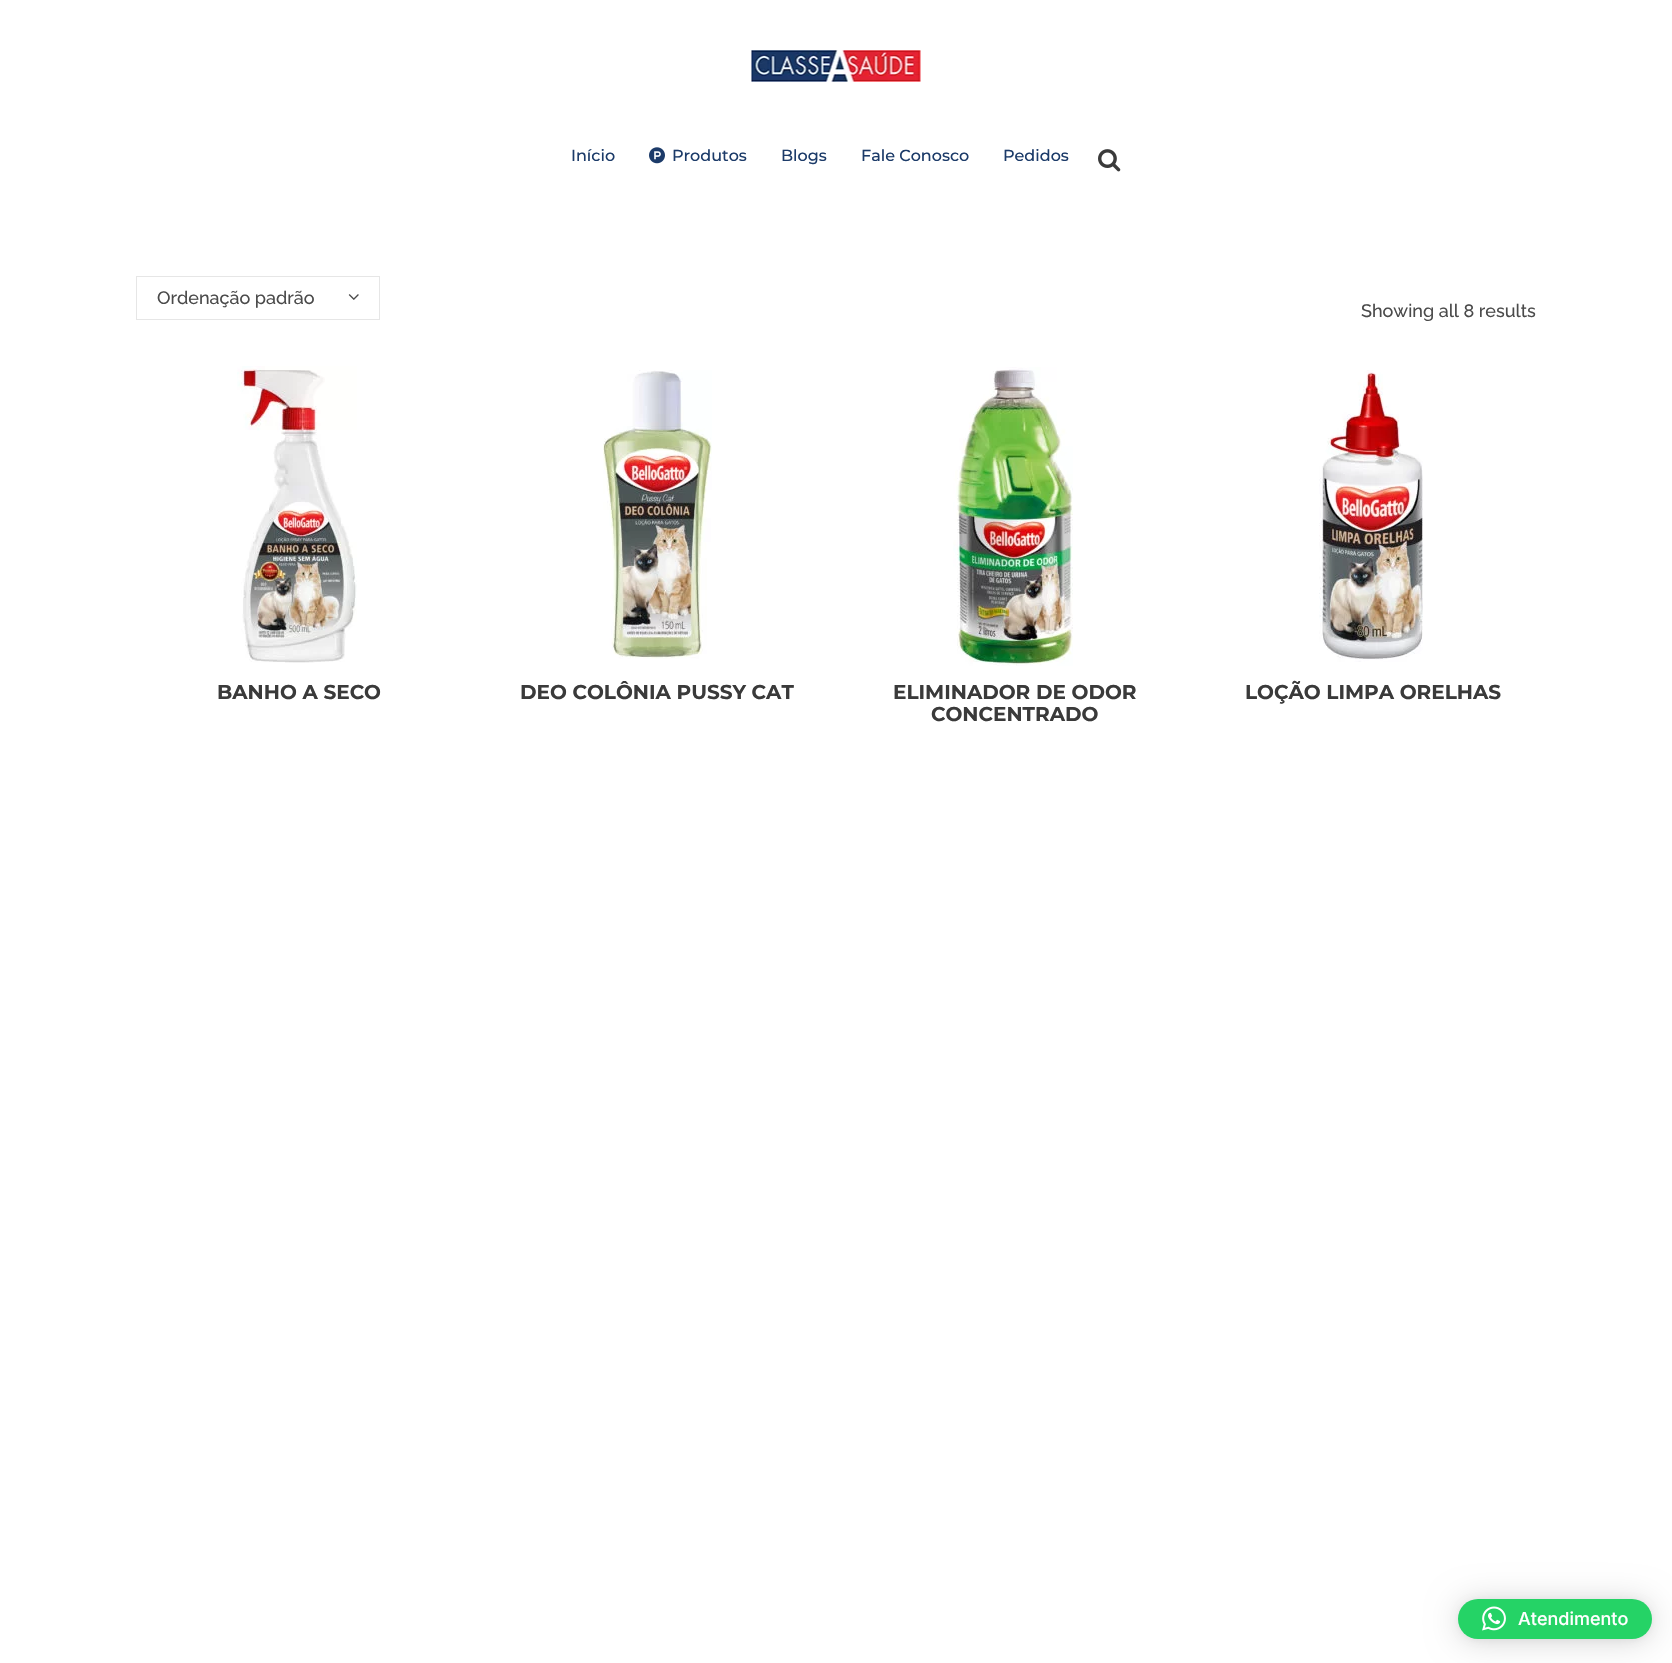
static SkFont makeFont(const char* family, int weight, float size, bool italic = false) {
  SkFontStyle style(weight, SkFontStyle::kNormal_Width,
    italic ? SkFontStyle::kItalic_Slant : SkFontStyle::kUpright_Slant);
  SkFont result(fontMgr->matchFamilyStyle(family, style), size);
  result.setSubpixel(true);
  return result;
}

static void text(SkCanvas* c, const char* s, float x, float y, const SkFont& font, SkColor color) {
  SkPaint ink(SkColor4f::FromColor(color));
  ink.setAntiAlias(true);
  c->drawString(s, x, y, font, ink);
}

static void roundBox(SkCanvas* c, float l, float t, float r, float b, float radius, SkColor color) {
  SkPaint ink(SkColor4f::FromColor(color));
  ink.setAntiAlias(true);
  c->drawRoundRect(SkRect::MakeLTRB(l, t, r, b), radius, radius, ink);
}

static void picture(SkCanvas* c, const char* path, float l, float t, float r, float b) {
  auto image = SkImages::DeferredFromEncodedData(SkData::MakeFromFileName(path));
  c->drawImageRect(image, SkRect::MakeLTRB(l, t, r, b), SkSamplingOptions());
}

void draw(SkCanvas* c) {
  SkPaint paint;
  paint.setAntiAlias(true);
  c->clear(0xffffffff);
  picture(c, "img_01.png", 751, 50, 921, 82);
  SkFont face1 = makeFont("Montserrat", 500, 16);
  text(c, "Início", 571, 161, face1, 0xff1c3b69);
  picture(c, "img_02.png", 649, 147, 665, 164);
  text(c, "Produtos", 672, 161, face1, 0xff1c3b69);
  text(c, "Blogs", 781, 161, face1, 0xff1c3b69);
  text(c, "Fale Conosco", 861, 161, face1, 0xff1c3b69);
  text(c, "Pedidos", 1003, 161, face1, 0xff1c3b69);
  picture(c, "img_03.png", 1098, 149, 1121, 172);
  paint.setStyle(SkPaint::kStroke_Style);
  paint.setStrokeWidth(1);
  paint.setColor(0xffe6e6e6);
  c->drawRect(SkRect::MakeLTRB(136.5f, 276.5f, 379.5f, 319.5f), paint);
  SkFont face2 = makeFont("Raleway", 500, 18);
  text(c, "Ordenação padrão", 157, 304, face2, 0xff4a4a4a);
  picture(c, "img_04.png", 348, 294, 359, 300);
  text(c, "Showing all 8 results", 1361, 317, face2, 0xff4a4a4a);
  picture(c, "img_05.png", 237, 366, 357, 663);
  SkFont face3 = makeFont("Montserrat", 700, 20);
  text(c, "BANHO A SECO", 217, 699, face3, 0xff3a3a3a);
  picture(c, "img_06.png", 603, 370, 712, 659);
  text(c, "DEO COLÔNIA PUSSY CAT", 520, 699, face3, 0xff3a3a3a);
  picture(c, "img_07.png", 953, 367, 1073, 666);
  text(c, "ELIMINADOR DE ODOR", 893, 699, face3, 0xff3a3a3a);
  text(c, "CONCENTRADO", 931, 721, face3, 0xff3a3a3a);
  picture(c, "img_08.png", 1319, 370, 1423, 662);
  text(c, "LOÇÃO LIMPA ORELHAS", 1245, 699, face3, 0xff3a3a3a);
  paint.setStyle(SkPaint::kFill_Style);
  paint.setColor(0x29000000);
  paint.setMaskFilter(SkMaskFilter::MakeBlur(kNormal_SkBlurStyle, 16));
  c->drawRoundRect(SkRect::MakeLTRB(1458, 1601, 1652, 1641), 20, 20, paint);
  paint.setMaskFilter(nullptr);
  paint.setColor(0x0f000000);
  paint.setMaskFilter(SkMaskFilter::MakeBlur(kNormal_SkBlurStyle, 3));
  c->drawRoundRect(SkRect::MakeLTRB(1458, 1600, 1652, 1640), 20, 20, paint);
  paint.setMaskFilter(nullptr);
  roundBox(c, 1458, 1599, 1652, 1639, 20, 0xff25d366);
  picture(c, "img_09.png", 1482, 1606, 1506, 1631);
  SkFont face4 = makeFont("Inter", 500, 18);
  text(c, "Atendimento", 1518, 1625, face4, 0xffffffff);
}
